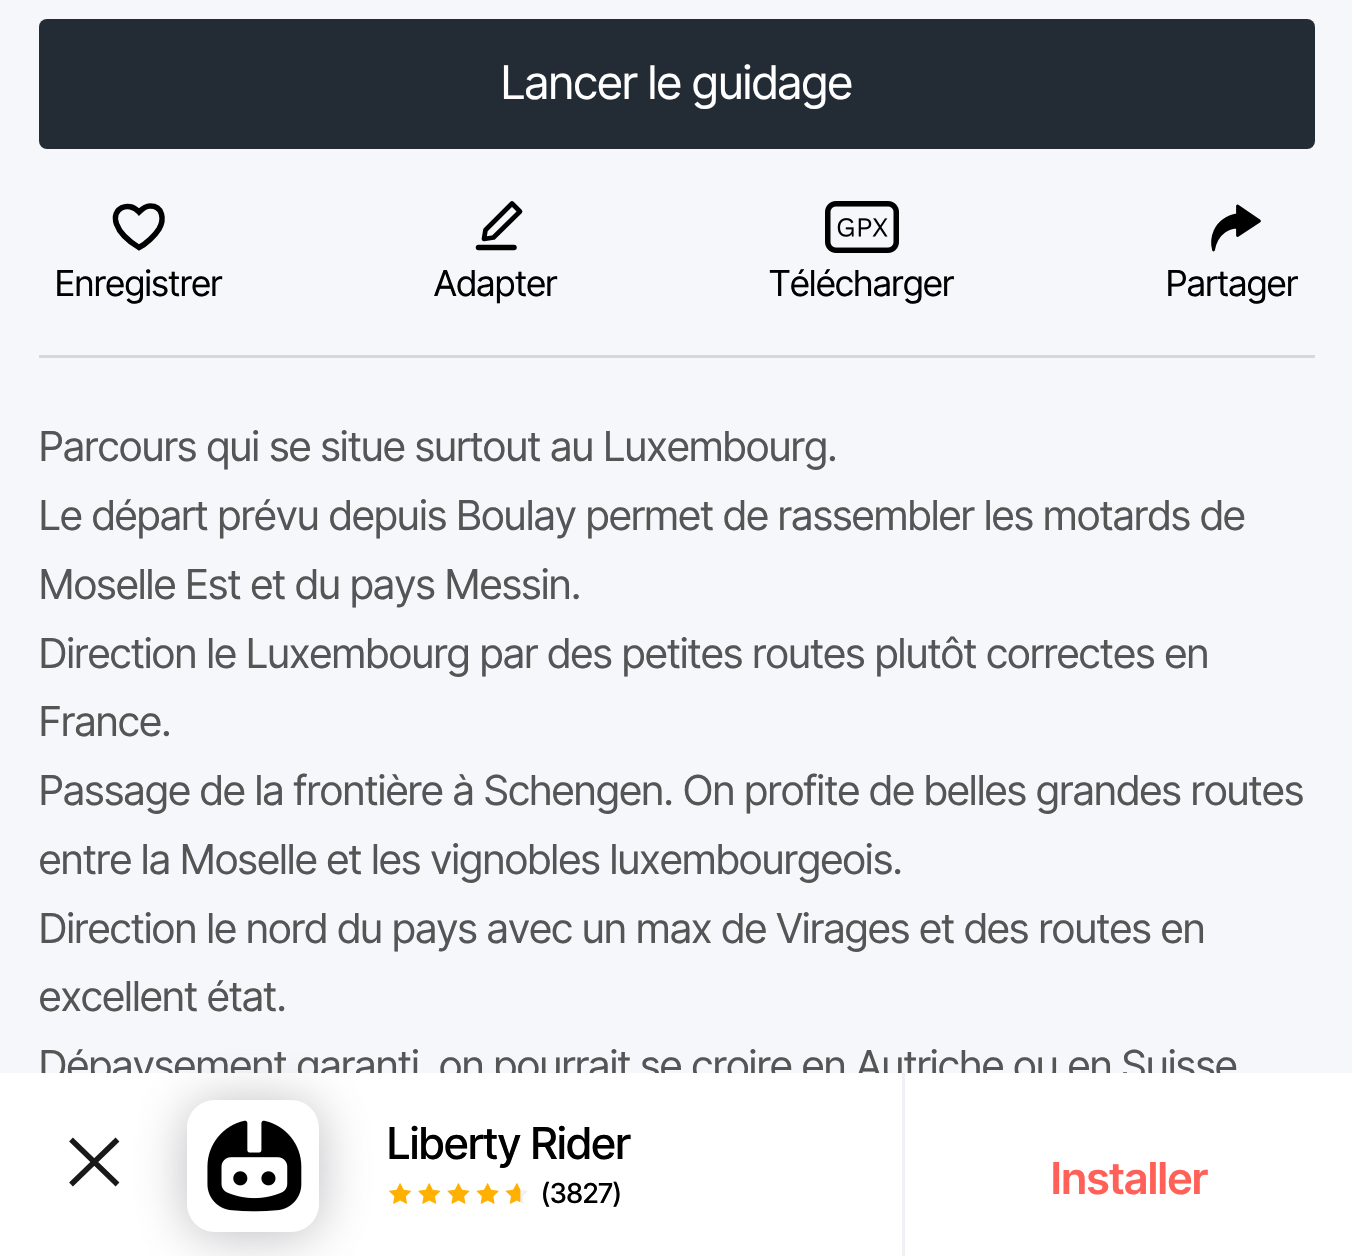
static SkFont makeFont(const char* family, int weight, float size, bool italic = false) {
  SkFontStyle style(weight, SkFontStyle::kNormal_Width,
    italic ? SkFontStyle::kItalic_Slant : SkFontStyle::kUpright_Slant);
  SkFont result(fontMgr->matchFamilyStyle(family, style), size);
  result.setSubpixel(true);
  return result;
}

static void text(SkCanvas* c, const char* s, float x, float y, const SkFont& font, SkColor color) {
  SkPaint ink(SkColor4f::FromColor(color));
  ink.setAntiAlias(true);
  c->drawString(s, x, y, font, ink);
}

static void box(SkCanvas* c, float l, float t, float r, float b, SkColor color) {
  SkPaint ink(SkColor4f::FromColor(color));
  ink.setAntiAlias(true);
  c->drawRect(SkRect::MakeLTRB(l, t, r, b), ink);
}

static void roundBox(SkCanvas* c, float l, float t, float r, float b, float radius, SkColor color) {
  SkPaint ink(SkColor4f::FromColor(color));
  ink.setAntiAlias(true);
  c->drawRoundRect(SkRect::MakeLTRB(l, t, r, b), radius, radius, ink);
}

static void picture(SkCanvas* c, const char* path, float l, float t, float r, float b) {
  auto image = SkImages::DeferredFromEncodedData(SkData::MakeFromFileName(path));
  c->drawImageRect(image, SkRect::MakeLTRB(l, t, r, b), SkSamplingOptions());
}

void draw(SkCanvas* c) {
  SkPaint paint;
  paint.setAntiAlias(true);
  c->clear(0xfff5f7fa);
  box(c, 39, 355, 1315, 358, 0xffd8d8d8);
  roundBox(c, 39, 19, 1315, 149, 8, 0xff232b35);
  SkFont face1 = makeFont("Inter Tight", 400, 46.25f);
  text(c, "Lancer le guidage", 501, 99, face1, 0xffffffff);
  paint.setStyle(SkPaint::kStroke_Style);
  paint.setStrokeWidth(5.5f);
  paint.setColor(0xff000000);
  c->drawPath(SkPathBuilder().moveTo(150, 206).cubicTo(145, 206, 141, 210, 139, 212).cubicTo(128.5f, 200.5f, 111, 208, 116.5f, 224).cubicTo(120, 234, 130, 242, 139, 247.5f).cubicTo(146, 244, 155, 235.5f, 159, 229).cubicTo(164.5f, 219.5f, 163, 206, 150, 206).close().detach(), paint);
  SkFont face2 = makeFont("Inter Tight", 400, 35.75f);
  text(c, "Enregistrer", 55, 296, face2, 0xff000000);
  paint.setStrokeWidth(4.7f);
  paint.setStrokeJoin(SkPaint::kRound_Join);
  c->drawPath(SkPathBuilder().moveTo(485.5f, 230).lineTo(512, 203.5f).lineTo(520, 211.5f).lineTo(493.5f, 237.5f).lineTo(484, 239).close().detach(), paint);
  paint.setStrokeWidth(5.5f);
  paint.setStrokeCap(SkPaint::kRound_Cap);
  c->drawPath(SkPathBuilder().moveTo(478.5f, 247.5f).lineTo(514, 247.5f).detach(), paint);
  text(c, "Adapter", 434, 296, face2, 0xff000000);
  picture(c, "img_01.png", 825, 201, 899, 253);
  text(c, "Télécharger", 769, 296, face2, 0xff000000);
  paint.setStyle(SkPaint::kFill_Style);
  c->drawPath(SkPathBuilder().moveTo(1260, 221).lineTo(1238, 206).lineTo(1238, 215).cubicTo(1213, 220, 1211, 240, 1214, 250).cubicTo(1217, 231, 1231, 227, 1238, 227).lineTo(1238, 236).close().detach(), paint);
  paint.setStyle(SkPaint::kStroke_Style);
  paint.setStrokeWidth(2.8f);
  paint.setStrokeCap(SkPaint::kButt_Cap);
  c->drawPath(SkPathBuilder().moveTo(1259.5f, 221).lineTo(1237.5f, 206).lineTo(1237.5f, 214.5f).cubicTo(1212.5f, 219.5f, 1211, 240.5f, 1213.5f, 250).cubicTo(1217, 231, 1231, 227, 1237.5f, 227).lineTo(1237.5f, 235.5f).close().detach(), paint);
  text(c, "Partager", 1166, 296, face2, 0xff000000);
  SkFont face3 = makeFont("Inter Tight", 400, 41.25f);
  text(c, "Parcours qui se situe surtout au Luxembourg.", 39, 461, face3, 0xff555555);
  text(c, "Le départ prévu depuis Boulay permet de rassembler les motards de", 39, 530, face3, 0xff555555);
  text(c, "Moselle Est et du pays Messin.", 39, 599, face3, 0xff555555);
  text(c, "Direction le Luxembourg par des petites routes plutôt correctes en", 39, 668, face3, 0xff555555);
  text(c, "France.", 39, 736, face3, 0xff555555);
  text(c, "Passage de la frontière à Schengen. On profite de belles grandes routes", 39, 805, face3, 0xff555555);
  text(c, "entre la Moselle et les vignobles luxembourgeois.", 39, 874, face3, 0xff555555);
  text(c, "Direction le nord du pays avec un max de Virages et des routes en", 39, 943, face3, 0xff555555);
  text(c, "excellent état.", 39, 1011, face3, 0xff555555);
  text(c, "Dépaysement garanti, on pourrait se croire en Autriche ou en Suisse", 39, 1080, face3, 0xff555555);
  box(c, 0, 1073, 1352, 1256, 0xffffffff);
  c->save();
  c->clipPath(SkPathBuilder(SkPathFillType::kEvenOdd).moveTo(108, 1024).lineTo(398, 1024).lineTo(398, 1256).lineTo(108, 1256).close().moveTo(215, 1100).lineTo(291, 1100).cubicTo(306.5f, 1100, 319, 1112.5f, 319, 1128).lineTo(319, 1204).cubicTo(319, 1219.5f, 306.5f, 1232, 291, 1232).lineTo(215, 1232).cubicTo(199.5f, 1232, 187, 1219.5f, 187, 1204).lineTo(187, 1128).cubicTo(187, 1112.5f, 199.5f, 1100, 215, 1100).close().detach(), true);
  paint.setStyle(SkPaint::kFill_Style);
  paint.setColor(0x6e63636e);
  paint.setMaskFilter(SkMaskFilter::MakeBlur(kNormal_SkBlurStyle, 26));
  c->drawRoundRect(SkRect::MakeLTRB(187, 1103, 319, 1235), 28, 28, paint);
  paint.setMaskFilter(nullptr);
  c->restore();
  paint.setStyle(SkPaint::kStroke_Style);
  paint.setStrokeWidth(5.5f);
  paint.setStrokeCap(SkPaint::kSquare_Cap);
  paint.setStrokeJoin(SkPaint::kMiter_Join);
  paint.setColor(0xff1a1919);
  c->drawPath(SkPathBuilder().moveTo(73, 1141.5f).lineTo(115.5f, 1182.5f).moveTo(115.5f, 1141.5f).lineTo(73, 1182.5f).detach(), paint);
  picture(c, "img_02.png", 207, 1120, 302, 1212);
  SkFont face4 = makeFont("Inter Tight", 500, 44);
  text(c, "Liberty Rider", 387, 1159, face4, 0xff000000);
  picture(c, "img_03.png", 389, 1183, 528, 1204);
  SkFont face5 = makeFont("Inter Tight", 500, 27.5f);
  text(c, "(3827)", 541, 1203, face5, 0xff000000);
  box(c, 902, 1073, 905, 1256, 0xfff0f0f5);
  SkFont face6 = makeFont("Inter Tight", 600, 44);
  text(c, "Installer", 1051, 1194, face6, 0xffff6158);
}
